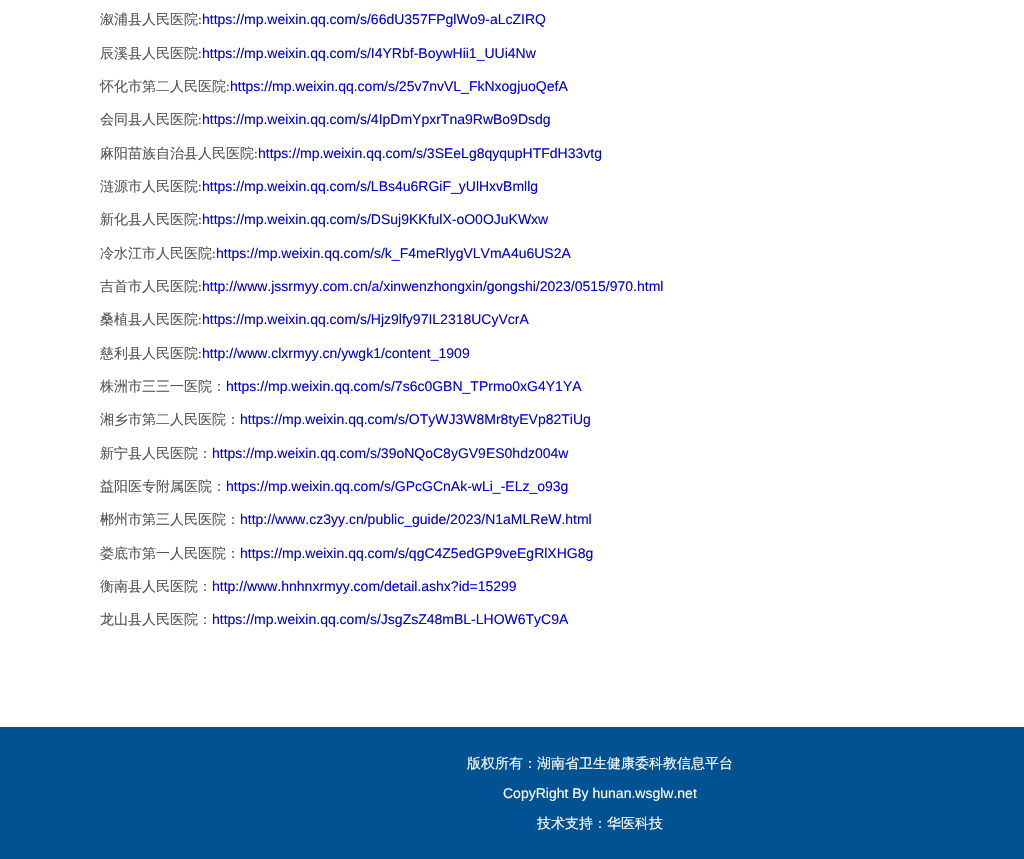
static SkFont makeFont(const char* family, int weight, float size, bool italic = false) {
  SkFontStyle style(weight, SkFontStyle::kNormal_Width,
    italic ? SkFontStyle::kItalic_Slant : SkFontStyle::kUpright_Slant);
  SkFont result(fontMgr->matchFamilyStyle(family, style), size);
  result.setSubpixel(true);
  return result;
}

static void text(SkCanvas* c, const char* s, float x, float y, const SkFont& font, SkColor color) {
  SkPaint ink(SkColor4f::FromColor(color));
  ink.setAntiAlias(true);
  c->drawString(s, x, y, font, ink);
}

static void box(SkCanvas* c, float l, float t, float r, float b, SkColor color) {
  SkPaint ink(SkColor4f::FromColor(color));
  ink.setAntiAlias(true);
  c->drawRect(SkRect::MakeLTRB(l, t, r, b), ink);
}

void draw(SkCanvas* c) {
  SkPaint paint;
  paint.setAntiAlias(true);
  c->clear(0xffffffff);
  SkFont face1 = makeFont("WenQuanYi Zen Hei", 500, 14);
  text(c, "溆浦县人民医院", 100, 24, face1, 0xff555555);
  SkFont face2 = makeFont("Carlito", 400, 14);
  text(c, ":", 198, 24, face2, 0xff555555);
  SkFont face3 = makeFont("Liberation Sans", 400, 14);
  text(c, "https://mp.weixin.qq.com/s/66dU357FPglWo9-aLcZIRQ", 202, 24, face3, 0xff0000ee);
  text(c, "辰溪县人民医院", 100, 58, face1, 0xff555555);
  text(c, ":", 198, 58, face2, 0xff555555);
  text(c, "https://mp.weixin.qq.com/s/I4YRbf-BoywHii1_UUi4Nw", 202, 58, face3, 0xff0000ee);
  text(c, "怀化市第二人民医院", 100, 91, face1, 0xff555555);
  text(c, ":", 226, 91, face2, 0xff555555);
  text(c, "https://mp.weixin.qq.com/s/25v7nvVL_FkNxogjuoQefA", 230, 91, face3, 0xff0000ee);
  text(c, "会同县人民医院", 100, 124, face1, 0xff555555);
  text(c, ":", 198, 124, face2, 0xff555555);
  text(c, "https://mp.weixin.qq.com/s/4IpDmYpxrTna9RwBo9Dsdg", 202, 124, face3, 0xff0000ee);
  text(c, "麻阳苗族自治县人民医院", 100, 158, face1, 0xff555555);
  text(c, ":", 254, 158, face2, 0xff555555);
  text(c, "https://mp.weixin.qq.com/s/3SEeLg8qyqupHTFdH33vtg", 258, 158, face3, 0xff0000ee);
  text(c, "涟源市人民医院", 100, 191, face1, 0xff555555);
  text(c, ":", 198, 191, face2, 0xff555555);
  text(c, "https://mp.weixin.qq.com/s/LBs4u6RGiF_yUlHxvBmllg", 202, 191, face3, 0xff0000ee);
  text(c, "新化县人民医院", 100, 224, face1, 0xff555555);
  text(c, ":", 198, 224, face2, 0xff555555);
  text(c, "https://mp.weixin.qq.com/s/DSuj9KKfulX-oO0OJuKWxw", 202, 224, face3, 0xff0000ee);
  text(c, "冷水江市人民医院", 100, 258, face1, 0xff555555);
  text(c, ":", 212, 258, face2, 0xff555555);
  text(c, "https://mp.weixin.qq.com/s/k_F4meRlygVLVmA4u6US2A", 216, 258, face3, 0xff0000ee);
  text(c, "吉首市人民医院", 100, 291, face1, 0xff555555);
  text(c, ":", 198, 291, face2, 0xff555555);
  text(c, "http://www.jssrmyy.com.cn/a/xinwenzhongxin/gongshi/2023/0515/970.html", 202, 291, face3, 0xff0000ee);
  text(c, "桑植县人民医院", 100, 324, face1, 0xff555555);
  text(c, ":", 198, 324, face2, 0xff555555);
  text(c, "https://mp.weixin.qq.com/s/Hjz9lfy97IL2318UCyVcrA", 202, 324, face3, 0xff0000ee);
  text(c, "慈利县人民医院", 100, 358, face1, 0xff555555);
  text(c, ":", 198, 358, face2, 0xff555555);
  text(c, "http://www.clxrmyy.cn/ywgk1/content_1909", 202, 358, face3, 0xff0000ee);
  text(c, "株洲市三三一医院：", 100, 391, face1, 0xff555555);
  text(c, "https://mp.weixin.qq.com/s/7s6c0GBN_TPrmo0xG4Y1YA", 226, 391, face3, 0xff0000ee);
  text(c, "湘乡市第二人民医院：", 100, 424, face1, 0xff555555);
  text(c, "https://mp.weixin.qq.com/s/OTyWJ3W8Mr8tyEVp82TiUg", 240, 424, face3, 0xff0000ee);
  text(c, "新宁县人民医院：", 100, 458, face1, 0xff555555);
  text(c, "https://mp.weixin.qq.com/s/39oNQoC8yGV9ES0hdz004w", 212, 458, face3, 0xff0000ee);
  text(c, "益阳医专附属医院：", 100, 491, face1, 0xff555555);
  text(c, "https://mp.weixin.qq.com/s/GPcGCnAk-wLi_-ELz_o93g", 226, 491, face3, 0xff0000ee);
  text(c, "郴州市第三人民医院：", 100, 524, face1, 0xff555555);
  text(c, "http://www.cz3yy.cn/public_guide/2023/N1aMLReW.html", 240, 524, face3, 0xff0000ee);
  text(c, "娄底市第一人民医院：", 100, 558, face1, 0xff555555);
  text(c, "https://mp.weixin.qq.com/s/qgC4Z5edGP9veEgRlXHG8g", 240, 558, face3, 0xff0000ee);
  text(c, "衡南县人民医院：", 100, 591, face1, 0xff555555);
  text(c, "http://www.hnhnxrmyy.com/detail.ashx?id=15299", 212, 591, face3, 0xff0000ee);
  text(c, "龙山县人民医院：", 100, 624, face1, 0xff555555);
  text(c, "https://mp.weixin.qq.com/s/JsgZsZ48mBL-LHOW6TyC9A", 212, 624, face3, 0xff0000ee);
  box(c, 0, 727, 1024, 859, 0xff015293);
  text(c, "版权所有：湖南省卫生健康委科教信息平台", 467, 768, face1, 0xffffffff);
  text(c, "CopyRight By hunan.wsglw.net", 503, 798, face3, 0xffffffff);
  text(c, "技术支持：华医科技", 537, 828, face1, 0xffffffff);
}
